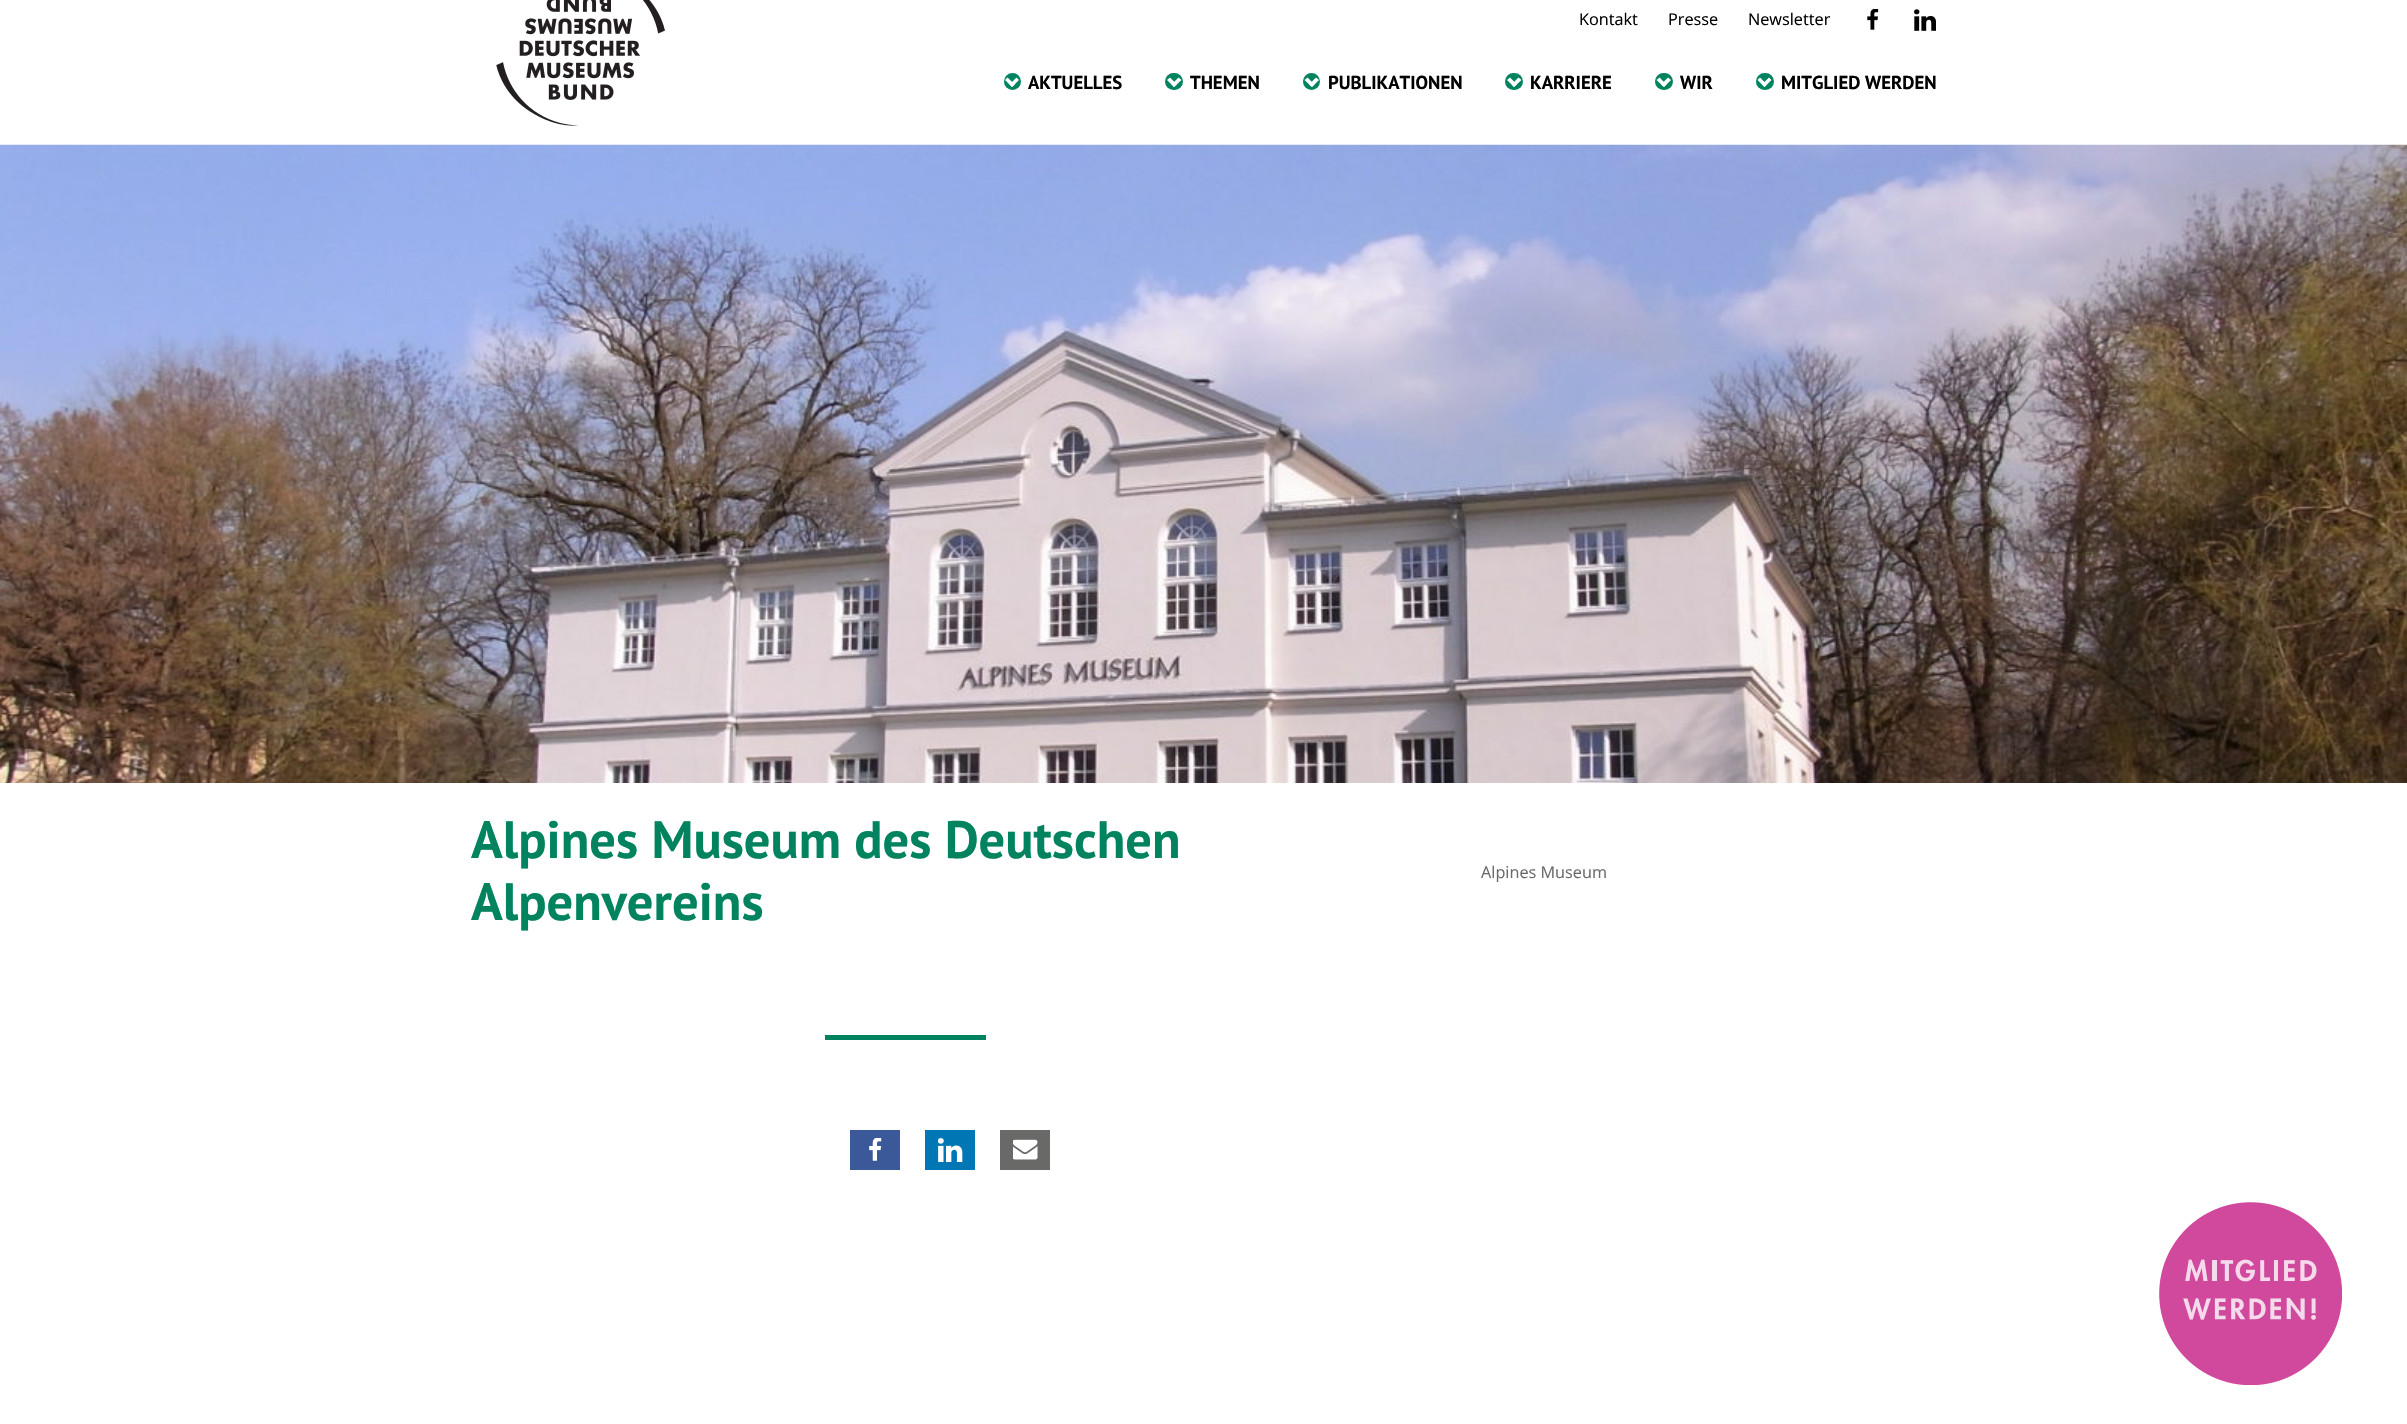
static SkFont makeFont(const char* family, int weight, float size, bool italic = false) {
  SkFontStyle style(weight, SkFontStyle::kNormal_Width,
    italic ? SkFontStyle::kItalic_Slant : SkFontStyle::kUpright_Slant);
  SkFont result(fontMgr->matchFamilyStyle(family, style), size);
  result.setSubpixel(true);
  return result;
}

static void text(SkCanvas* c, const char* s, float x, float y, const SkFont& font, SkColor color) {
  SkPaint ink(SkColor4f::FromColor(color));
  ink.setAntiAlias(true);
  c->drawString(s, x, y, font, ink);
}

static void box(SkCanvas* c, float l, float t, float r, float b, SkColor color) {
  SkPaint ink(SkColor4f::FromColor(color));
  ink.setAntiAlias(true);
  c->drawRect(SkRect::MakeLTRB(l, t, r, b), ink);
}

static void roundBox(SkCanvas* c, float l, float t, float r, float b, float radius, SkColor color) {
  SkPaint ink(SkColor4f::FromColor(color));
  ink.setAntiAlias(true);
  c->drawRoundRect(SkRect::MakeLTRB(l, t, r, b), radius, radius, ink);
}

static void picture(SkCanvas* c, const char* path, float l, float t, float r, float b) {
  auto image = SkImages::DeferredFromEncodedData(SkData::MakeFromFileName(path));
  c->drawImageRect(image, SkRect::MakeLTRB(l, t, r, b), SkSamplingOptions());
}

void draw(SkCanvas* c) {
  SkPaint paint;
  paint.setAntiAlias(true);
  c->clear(0xffffffff);
  picture(c, "img_01.png", 496, 0, 665, 126);
  SkFont face1 = makeFont("Open Sans", 400, 16.25f);
  text(c, "Kontakt", 1579, 25, face1, 0xff000000);
  text(c, "Presse", 1668, 25, face1, 0xff000000);
  text(c, "Newsletter", 1748, 25, face1, 0xff000000);
  picture(c, "img_02.png", 1867, 9, 1879, 30);
  picture(c, "img_03.png", 1914, 9, 1936, 31);
  paint.setColor(0xff00835e);
  c->drawCircle(1012.5f, 81.5f, 8.5f, paint);
  paint.setColor(0xffffffff);
  c->drawPath(SkPathBuilder().moveTo(1009.5f, 84.5f).lineTo(1016.5f, 77.5f).lineTo(1019, 80).lineTo(1012, 87).close().detach(), paint);
  c->drawPath(SkPathBuilder().moveTo(1005, 80).lineTo(1007.5f, 77.5f).lineTo(1015, 84.5f).lineTo(1012, 87).close().detach(), paint);
  SkFont face2 = makeFont("PT Sans", 700, 18.75f);
  text(c, "AKTUELLES", 1028, 89, face2, 0xff000000);
  roundBox(c, 1165, 73, 1183, 90, 8.5f, 0xff00835e);
  c->drawPath(SkPathBuilder().moveTo(1171.5f, 84.5f).lineTo(1178.5f, 77.5f).lineTo(1181.5f, 80).lineTo(1174, 87).close().detach(), paint);
  c->drawPath(SkPathBuilder().moveTo(1167, 80).lineTo(1170, 77.5f).lineTo(1177, 84.5f).lineTo(1174, 87).close().detach(), paint);
  text(c, "THEMEN", 1190, 89, face2, 0xff000000);
  paint.setColor(0xff00835e);
  c->drawCircle(1311.5f, 81.5f, 8.5f, paint);
  paint.setColor(0xffffffff);
  c->drawPath(SkPathBuilder().moveTo(1309, 84.5f).lineTo(1316, 77.5f).lineTo(1319, 80).lineTo(1312, 87).close().detach(), paint);
  c->drawPath(SkPathBuilder().moveTo(1304.5f, 80).lineTo(1307.5f, 77.5f).lineTo(1314.5f, 84.5f).lineTo(1312, 87).close().detach(), paint);
  text(c, "PUBLIKATIONEN", 1328, 89, face2, 0xff000000);
  roundBox(c, 1505, 73, 1523, 90, 8.5f, 0xff00835e);
  c->drawPath(SkPathBuilder().moveTo(1511.5f, 84.5f).lineTo(1518.5f, 77.5f).lineTo(1521.5f, 80).lineTo(1514, 87).close().detach(), paint);
  c->drawPath(SkPathBuilder().moveTo(1507, 80).lineTo(1510, 77.5f).lineTo(1517, 84.5f).lineTo(1514, 87).close().detach(), paint);
  text(c, "KARRIERE", 1530, 89, face2, 0xff000000);
  roundBox(c, 1655, 73, 1673, 90, 8.5f, 0xff00835e);
  c->drawPath(SkPathBuilder().moveTo(1661, 84.5f).lineTo(1668, 77.5f).lineTo(1671, 80).lineTo(1664, 87).close().detach(), paint);
  c->drawPath(SkPathBuilder().moveTo(1656.5f, 80).lineTo(1659.5f, 77.5f).lineTo(1666.5f, 84.5f).lineTo(1664, 87).close().detach(), paint);
  text(c, "WIR", 1680, 89, face2, 0xff000000);
  roundBox(c, 1756, 73, 1774, 90, 8.5f, 0xff00835e);
  c->drawPath(SkPathBuilder().moveTo(1762, 84.5f).lineTo(1769, 77.5f).lineTo(1771.5f, 80).lineTo(1764.5f, 87).close().detach(), paint);
  c->drawPath(SkPathBuilder().moveTo(1757.5f, 80).lineTo(1760, 77.5f).lineTo(1767, 84.5f).lineTo(1764.5f, 87).close().detach(), paint);
  text(c, "MITGLIED WERDEN", 1781, 89, face2, 0xff000000);
  picture(c, "img_04.png", 0, 144, 2407, 783);
  SkFont face3 = makeFont("PT Sans", 700, 52.5f);
  text(c, "Alpines Museum des Deutschen", 471, 858, face3, 0xff00835e);
  text(c, "Alpenvereins", 471, 920, face3, 0xff00835e);
  text(c, "Alpines Museum", 1481, 878, face1, 0xff696967);
  box(c, 825, 1035, 986, 1040, 0xff00835e);
  box(c, 850, 1130, 900, 1170, 0xff3b5998);
  picture(c, "img_05.png", 869, 1138, 882, 1161);
  box(c, 925, 1130, 975, 1170, 0xff0077b5);
  picture(c, "img_06.png", 938, 1138, 963, 1162);
  box(c, 1000, 1130, 1050, 1170, 0xff696967);
  picture(c, "img_07.png", 1013, 1139, 1038, 1160);
  picture(c, "img_08.png", 2159, 1202, 2342, 1385);
}
